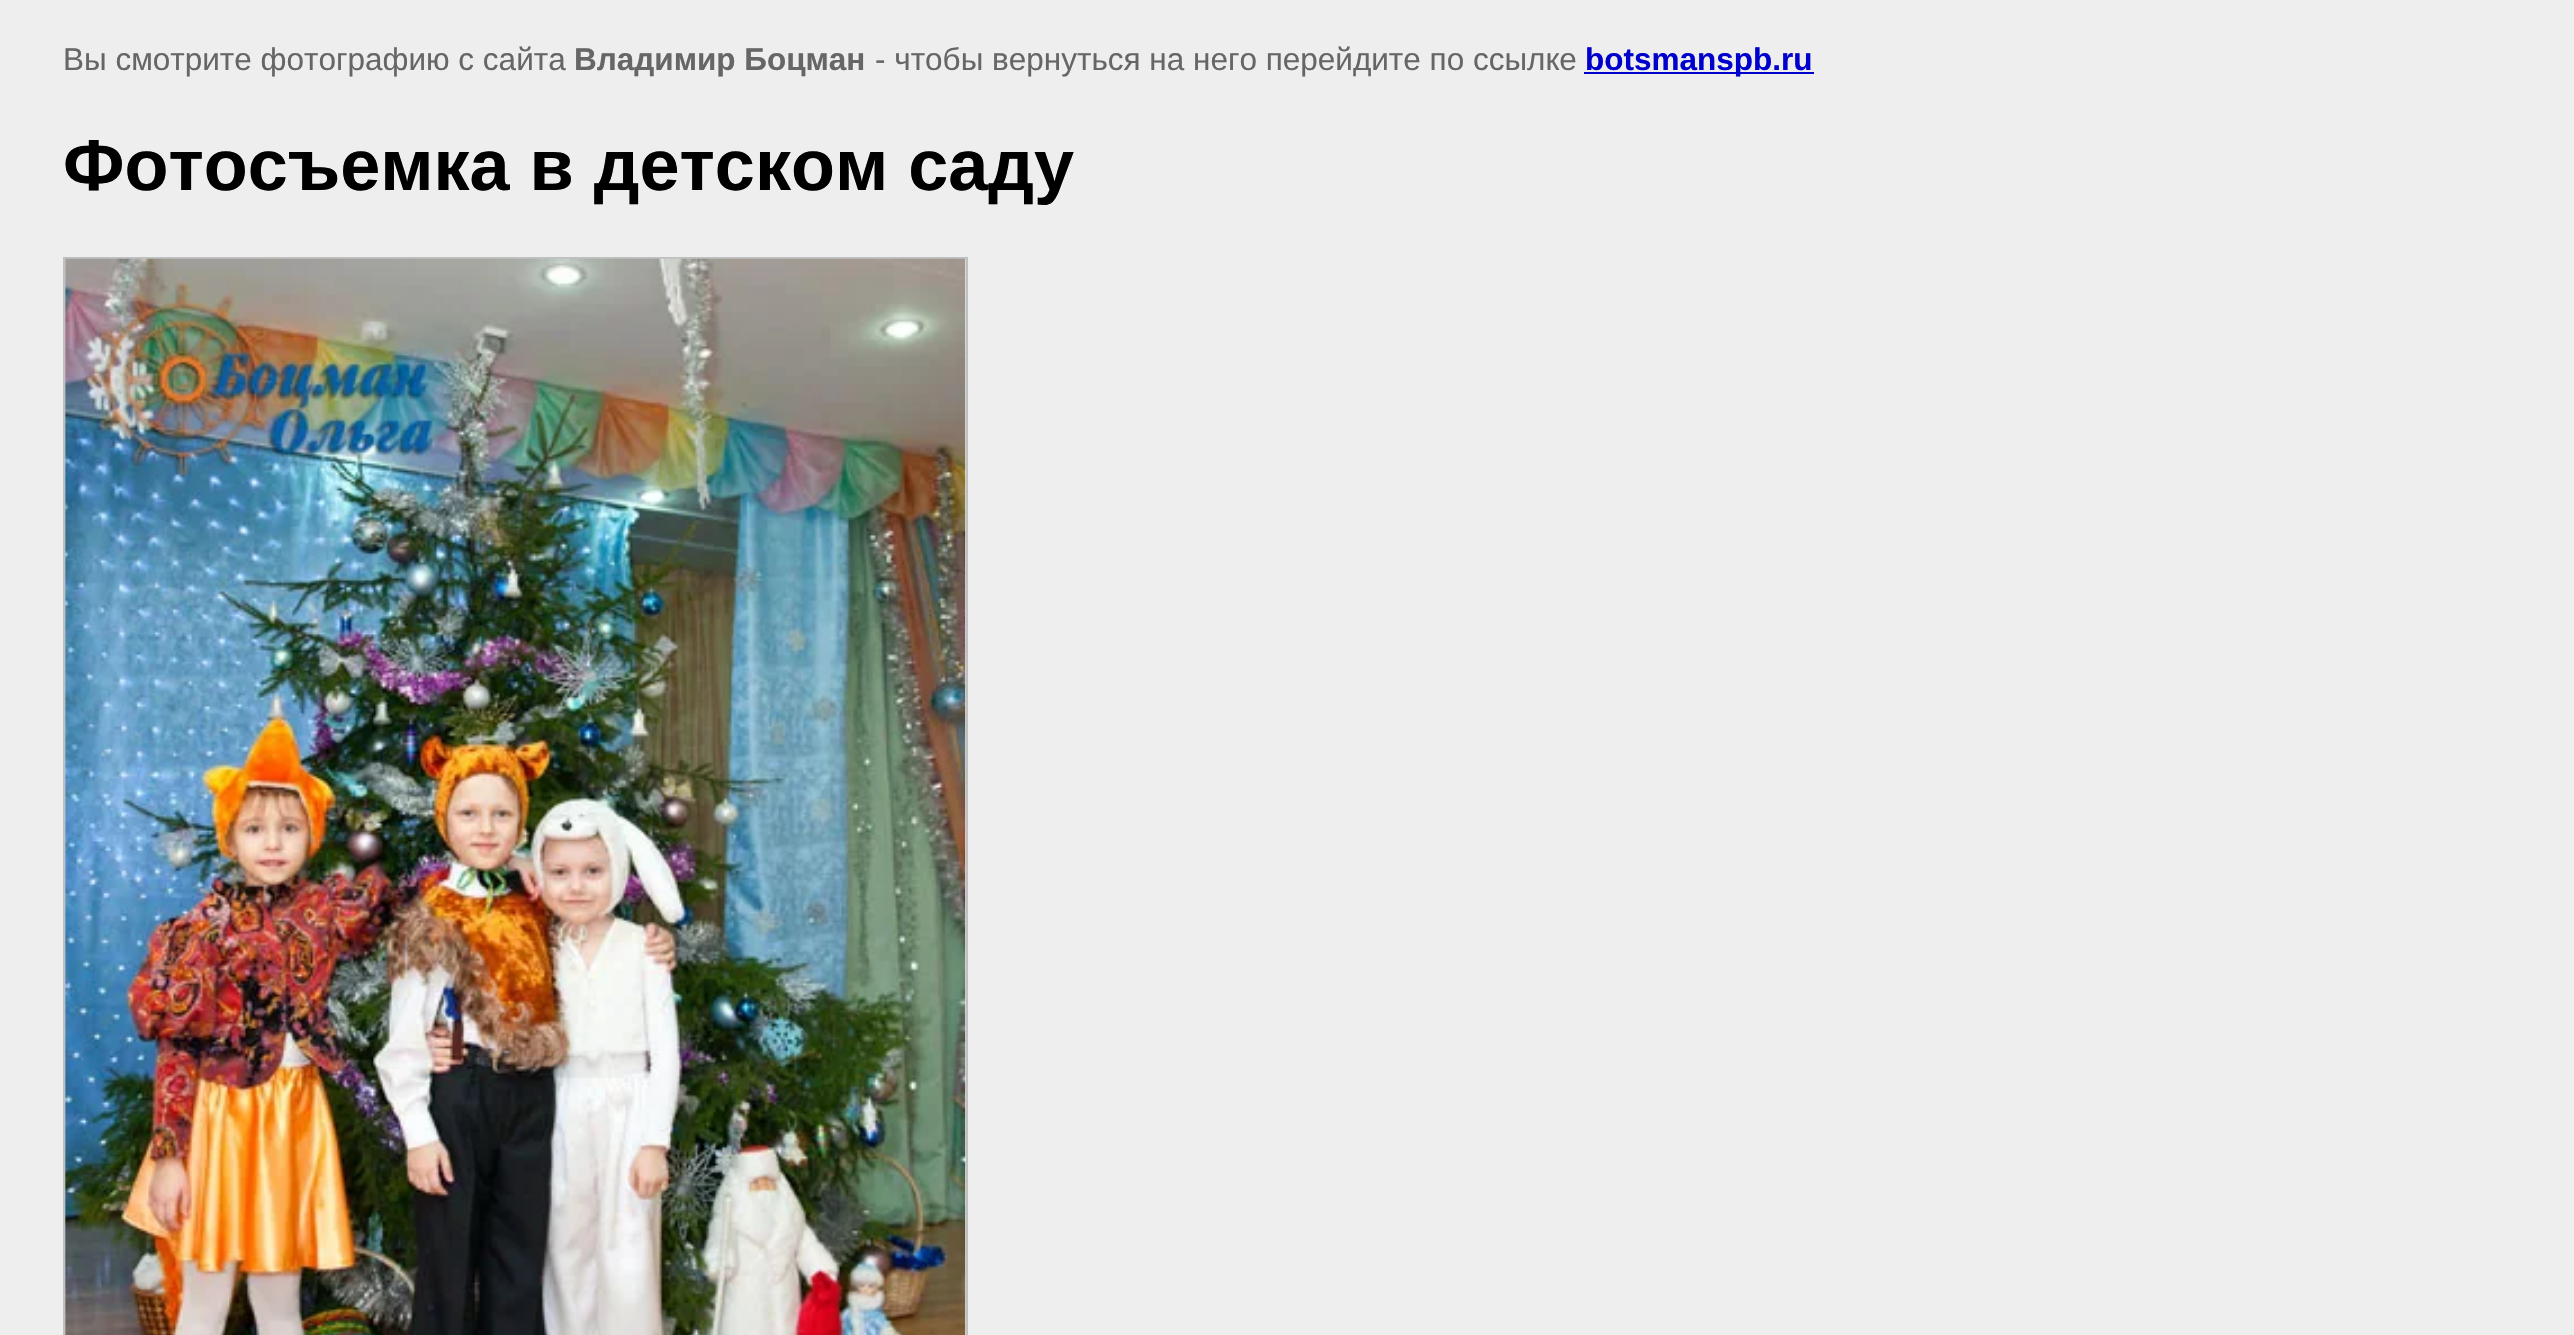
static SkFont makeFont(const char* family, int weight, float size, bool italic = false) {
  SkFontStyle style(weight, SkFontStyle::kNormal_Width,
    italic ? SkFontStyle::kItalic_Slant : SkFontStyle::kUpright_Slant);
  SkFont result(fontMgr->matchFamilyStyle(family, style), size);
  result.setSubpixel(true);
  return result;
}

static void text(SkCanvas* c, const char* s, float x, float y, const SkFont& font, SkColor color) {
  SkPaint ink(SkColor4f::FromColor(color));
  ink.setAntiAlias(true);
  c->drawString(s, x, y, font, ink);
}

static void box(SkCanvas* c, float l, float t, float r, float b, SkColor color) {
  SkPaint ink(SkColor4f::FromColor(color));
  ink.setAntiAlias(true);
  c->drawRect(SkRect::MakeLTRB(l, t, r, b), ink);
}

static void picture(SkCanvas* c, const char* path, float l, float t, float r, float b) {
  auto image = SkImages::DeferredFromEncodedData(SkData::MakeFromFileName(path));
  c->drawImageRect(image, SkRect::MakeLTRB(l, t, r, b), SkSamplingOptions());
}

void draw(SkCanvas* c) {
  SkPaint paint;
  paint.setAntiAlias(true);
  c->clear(0xffeeeeee);
  SkFont face1 = makeFont("Liberation Sans", 400, 31.5f);
  text(c, "Вы смотрите фотографию с сайта", 63, 70, face1, 0xff666666);
  SkFont face2 = makeFont("Liberation Sans", 700, 31.5f);
  text(c, "Владимир Боцман", 574, 70, face2, 0xff666666);
  text(c, "- чтобы вернуться на него перейдите по ссылке", 875, 70, face1, 0xff666666);
  box(c, 1584, 72, 1814, 74, 0xff0000cc);
  text(c, "botsmanspb.ru", 1585, 70, face2, 0xff0000cc);
  SkFont face3 = makeFont("Liberation Sans", 700, 72);
  text(c, "Фотосъемка в детском саду", 63, 190, face3, 0xff000000);
  paint.setStyle(SkPaint::kStroke_Style);
  paint.setStrokeWidth(2);
  paint.setColor(0xffc0c0c0);
  c->drawRect(SkRect::MakeLTRB(64, 258, 967, 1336), paint);
  picture(c, "img_01.png", 65, 258, 966, 1335);
}
